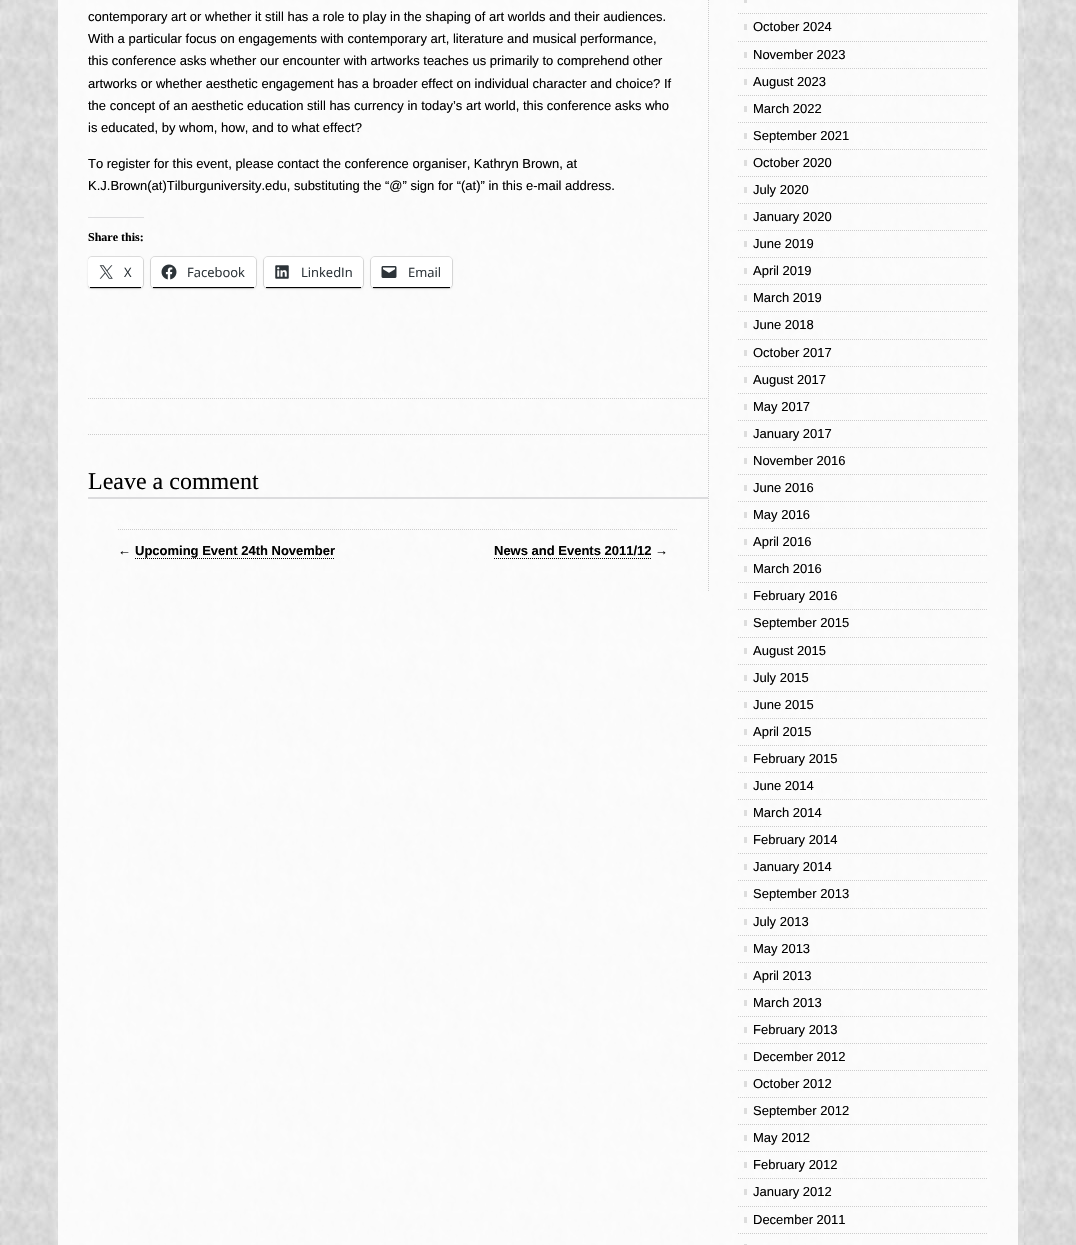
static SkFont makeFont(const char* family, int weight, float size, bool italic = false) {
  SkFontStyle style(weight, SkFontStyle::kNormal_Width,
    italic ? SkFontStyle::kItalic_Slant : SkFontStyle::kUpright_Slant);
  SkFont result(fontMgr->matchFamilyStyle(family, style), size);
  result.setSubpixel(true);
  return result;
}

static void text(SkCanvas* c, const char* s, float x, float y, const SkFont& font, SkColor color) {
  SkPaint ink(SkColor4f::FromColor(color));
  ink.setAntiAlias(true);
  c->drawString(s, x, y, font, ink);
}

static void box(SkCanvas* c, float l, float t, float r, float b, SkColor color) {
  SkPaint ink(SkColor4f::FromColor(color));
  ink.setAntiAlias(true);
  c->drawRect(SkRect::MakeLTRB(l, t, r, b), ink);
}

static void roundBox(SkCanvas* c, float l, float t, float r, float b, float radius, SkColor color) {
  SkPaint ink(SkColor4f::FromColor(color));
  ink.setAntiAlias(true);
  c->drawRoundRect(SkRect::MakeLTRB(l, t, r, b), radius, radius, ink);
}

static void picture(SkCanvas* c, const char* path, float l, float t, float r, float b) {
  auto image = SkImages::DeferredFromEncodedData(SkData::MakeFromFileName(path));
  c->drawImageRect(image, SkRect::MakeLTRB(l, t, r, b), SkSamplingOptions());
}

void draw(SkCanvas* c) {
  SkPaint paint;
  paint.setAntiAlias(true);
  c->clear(0xffffffff);
  picture(c, "img_01.png", 0, 0, 1076, 1245);
  box(c, 58, 0, 1018, 1245, 0xe0ffffff);
  paint.setStyle(SkPaint::kStroke_Style);
  paint.setStrokeWidth(1);
  paint.setColor(0xffcccccc);
  paint.setPathEffect(SkDashPathEffect::Make({{1, 1}}, 0));
  c->drawPath(SkPathBuilder().moveTo(708.5f, -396).lineTo(708.5f, 592).detach(), paint);
  paint.setPathEffect(nullptr);
  SkFont face1 = makeFont("Liberation Sans", 400, 13);
  text(c, "contemporary art or whether it still has a role to play in the shaping of art worlds and their audiences.", 88, 21, face1, 0xff000000);
  text(c, "With a particular focus on engagements with contemporary art, literature and musical performance,", 88, 43, face1, 0xff000000);
  text(c, "this conference asks whether our encounter with artworks teaches us primarily to comprehend other", 88, 65, face1, 0xff000000);
  text(c, "artworks or whether aesthetic engagement has a broader effect on individual character and choice? If", 88, 88, face1, 0xff000000);
  text(c, "the concept of an aesthetic education still has currency in today’s art world, this conference asks who", 88, 110, face1, 0xff000000);
  text(c, "is educated, by whom, how, and to what effect?", 88, 132, face1, 0xff000000);
  text(c, "To register for this event, please contact the conference organiser, Kathryn Brown, at", 88, 168, face1, 0xff000000);
  text(c, "K.J.Brown(at)Tilburguniversity.edu, substituting the “@” sign for “(at)” in this e-mail address.", 88, 190, face1, 0xff000000);
  box(c, 88, 217, 144, 218, 0xffdcdcde);
  SkFont face2 = makeFont("Liberation Serif", 700, 12);
  text(c, "Share this:", 88, 241, face2, 0xff000000);
  c->save();
  c->clipRect(SkRect::MakeLTRB(88, 0, 708, 592));
  paint.setColor(0xffdddddd);
  c->drawRoundRect(SkRect::MakeLTRB(87.5f, 256.5f, 143.5f, 288.5f), 4.5f, 4.5f, paint);
  c->restore();
  paint.setStyle(SkPaint::kFill_Style);
  paint.setColor(0x1f000000);
  paint.setMaskFilter(SkMaskFilter::MakeBlur(kNormal_SkBlurStyle, 1));
  c->drawRoundRect(SkRect::MakeLTRB(88, 258, 143, 289), 4, 4, paint);
  paint.setMaskFilter(nullptr);
  roundBox(c, 88, 257, 143, 288, 4, 0xffffffff);
  box(c, 90, 287, 141, 288, 0xff000000);
  picture(c, "img_02.png", 99, 265, 113, 279);
  SkFont face3 = makeFont("Open Sans", 400, 13);
  text(c, "X", 124, 277, face3, 0xff2c3338);
  paint.setStyle(SkPaint::kStroke_Style);
  c->drawRoundRect(SkRect::MakeLTRB(150.5f, 256.5f, 256.5f, 288.5f), 4.5f, 4.5f, paint);
  paint.setStyle(SkPaint::kFill_Style);
  paint.setMaskFilter(SkMaskFilter::MakeBlur(kNormal_SkBlurStyle, 1));
  c->drawRoundRect(SkRect::MakeLTRB(151, 258, 256, 289), 4, 4, paint);
  paint.setMaskFilter(nullptr);
  roundBox(c, 151, 257, 256, 288, 4, 0xffffffff);
  box(c, 153, 287, 254, 288, 0xff000000);
  picture(c, "img_03.png", 161, 264, 177, 280);
  text(c, "Facebook", 187, 277, face3, 0xff2c3338);
  paint.setStyle(SkPaint::kStroke_Style);
  paint.setColor(0xffdddddd);
  c->drawRoundRect(SkRect::MakeLTRB(263.5f, 256.5f, 363.5f, 288.5f), 4.5f, 4.5f, paint);
  paint.setStyle(SkPaint::kFill_Style);
  paint.setColor(0x1f000000);
  paint.setMaskFilter(SkMaskFilter::MakeBlur(kNormal_SkBlurStyle, 1));
  c->drawRoundRect(SkRect::MakeLTRB(264, 258, 363, 289), 4, 4, paint);
  paint.setMaskFilter(nullptr);
  roundBox(c, 264, 257, 363, 288, 4, 0xffffffff);
  box(c, 266, 287, 361, 288, 0xff000000);
  picture(c, "img_04.png", 275, 265, 289, 279);
  text(c, "LinkedIn", 301, 277, face3, 0xff2c3338);
  paint.setStyle(SkPaint::kStroke_Style);
  paint.setColor(0xffdddddd);
  c->drawRoundRect(SkRect::MakeLTRB(370.5f, 256.5f, 452.5f, 288.5f), 4.5f, 4.5f, paint);
  paint.setStyle(SkPaint::kFill_Style);
  paint.setColor(0x1f000000);
  paint.setMaskFilter(SkMaskFilter::MakeBlur(kNormal_SkBlurStyle, 1));
  c->drawRoundRect(SkRect::MakeLTRB(371, 258, 452, 289), 4, 4, paint);
  paint.setMaskFilter(nullptr);
  roundBox(c, 371, 257, 452, 288, 4, 0xffffffff);
  box(c, 373, 287, 450, 288, 0xff000000);
  picture(c, "img_05.png", 381, 266, 397, 278);
  text(c, "Email", 408, 277, face3, 0xff2c3338);
  paint.setStyle(SkPaint::kStroke_Style);
  paint.setColor(0xffcccccc);
  paint.setPathEffect(SkDashPathEffect::Make({{1, 1}}, 0));
  c->drawPath(SkPathBuilder().moveTo(88, 398.5f).lineTo(708, 398.5f).detach(), paint);
  paint.setPathEffect(nullptr);
  paint.setPathEffect(SkDashPathEffect::Make({{1, 1}}, 0));
  c->drawPath(SkPathBuilder().moveTo(88, 434.5f).lineTo(708, 434.5f).detach(), paint);
  paint.setPathEffect(nullptr);
  SkFont face4 = makeFont("Liberation Serif", 400, 24);
  text(c, "Leave a comment", 88, 489, face4, 0xff000000);
  box(c, 88, 497, 708, 499, 0xffdcdcde);
  paint.setPathEffect(SkDashPathEffect::Make({{1, 1}}, 0));
  c->drawPath(SkPathBuilder().moveTo(118, 529.5f).lineTo(678, 529.5f).detach(), paint);
  paint.setPathEffect(nullptr);
  text(c, "←", 118, 555, face1, 0xff000000);
  SkFont face5 = makeFont("Liberation Sans", 700, 13);
  text(c, "Upcoming Event 24th November", 135, 555, face5, 0xff000000);
  paint.setColor(0xff000000);
  paint.setPathEffect(SkDashPathEffect::Make({{1, 1}}, 0));
  c->drawPath(SkPathBuilder().moveTo(135, 558.5f).lineTo(335, 558.5f).detach(), paint);
  paint.setPathEffect(nullptr);
  text(c, "News and Events 2011/12", 494, 555, face5, 0xff000000);
  paint.setPathEffect(SkDashPathEffect::Make({{1, 1}}, 0));
  c->drawPath(SkPathBuilder().moveTo(494, 558.5f).lineTo(651, 558.5f).detach(), paint);
  paint.setPathEffect(nullptr);
  text(c, "→", 655, 555, face1, 0xff000000);
  box(c, 744, 0, 747, 3, 0xffdddddd);
  paint.setColor(0xffcccccc);
  paint.setPathEffect(SkDashPathEffect::Make({{1, 1}}, 0));
  c->drawPath(SkPathBuilder().moveTo(738, 13.5f).lineTo(988, 13.5f).detach(), paint);
  paint.setPathEffect(nullptr);
  box(c, 744, 24, 747, 30, 0xffdddddd);
  text(c, "October 2024", 753, 31, face1, 0xff000000);
  paint.setPathEffect(SkDashPathEffect::Make({{1, 1}}, 0));
  c->drawPath(SkPathBuilder().moveTo(738, 41.5f).lineTo(988, 41.5f).detach(), paint);
  paint.setPathEffect(nullptr);
  box(c, 744, 52, 747, 58, 0xffdddddd);
  text(c, "November 2023", 753, 59, face1, 0xff000000);
  paint.setPathEffect(SkDashPathEffect::Make({{1, 1}}, 0));
  c->drawPath(SkPathBuilder().moveTo(738, 68.5f).lineTo(988, 68.5f).detach(), paint);
  paint.setPathEffect(nullptr);
  box(c, 744, 79, 747, 85, 0xffdddddd);
  text(c, "August 2023", 753, 86, face1, 0xff000000);
  paint.setPathEffect(SkDashPathEffect::Make({{1, 1}}, 0));
  c->drawPath(SkPathBuilder().moveTo(738, 95.5f).lineTo(988, 95.5f).detach(), paint);
  paint.setPathEffect(nullptr);
  box(c, 744, 106, 747, 112, 0xffdddddd);
  text(c, "March 2022", 753, 113, face1, 0xff000000);
  paint.setPathEffect(SkDashPathEffect::Make({{1, 1}}, 0));
  c->drawPath(SkPathBuilder().moveTo(738, 122.5f).lineTo(988, 122.5f).detach(), paint);
  paint.setPathEffect(nullptr);
  box(c, 744, 133, 747, 139, 0xffdddddd);
  text(c, "September 2021", 753, 140, face1, 0xff000000);
  paint.setPathEffect(SkDashPathEffect::Make({{1, 1}}, 0));
  c->drawPath(SkPathBuilder().moveTo(738, 149.5f).lineTo(988, 149.5f).detach(), paint);
  paint.setPathEffect(nullptr);
  box(c, 744, 160, 747, 166, 0xffdddddd);
  text(c, "October 2020", 753, 167, face1, 0xff000000);
  paint.setPathEffect(SkDashPathEffect::Make({{1, 1}}, 0));
  c->drawPath(SkPathBuilder().moveTo(738, 176.5f).lineTo(988, 176.5f).detach(), paint);
  paint.setPathEffect(nullptr);
  box(c, 744, 187, 747, 193, 0xffdddddd);
  text(c, "July 2020", 753, 194, face1, 0xff000000);
  paint.setPathEffect(SkDashPathEffect::Make({{1, 1}}, 0));
  c->drawPath(SkPathBuilder().moveTo(738, 203.5f).lineTo(988, 203.5f).detach(), paint);
  paint.setPathEffect(nullptr);
  box(c, 744, 214, 747, 220, 0xffdddddd);
  text(c, "January 2020", 753, 221, face1, 0xff000000);
  paint.setPathEffect(SkDashPathEffect::Make({{1, 1}}, 0));
  c->drawPath(SkPathBuilder().moveTo(738, 230.5f).lineTo(988, 230.5f).detach(), paint);
  paint.setPathEffect(nullptr);
  box(c, 744, 241, 747, 247, 0xffdddddd);
  text(c, "June 2019", 753, 248, face1, 0xff000000);
  paint.setPathEffect(SkDashPathEffect::Make({{1, 1}}, 0));
  c->drawPath(SkPathBuilder().moveTo(738, 257.5f).lineTo(988, 257.5f).detach(), paint);
  paint.setPathEffect(nullptr);
  box(c, 744, 268, 747, 274, 0xffdddddd);
  text(c, "April 2019", 753, 275, face1, 0xff000000);
  paint.setPathEffect(SkDashPathEffect::Make({{1, 1}}, 0));
  c->drawPath(SkPathBuilder().moveTo(738, 284.5f).lineTo(988, 284.5f).detach(), paint);
  paint.setPathEffect(nullptr);
  box(c, 744, 295, 747, 301, 0xffdddddd);
  text(c, "March 2019", 753, 302, face1, 0xff000000);
  paint.setPathEffect(SkDashPathEffect::Make({{1, 1}}, 0));
  c->drawPath(SkPathBuilder().moveTo(738, 311.5f).lineTo(988, 311.5f).detach(), paint);
  paint.setPathEffect(nullptr);
  box(c, 744, 322, 747, 328, 0xffdddddd);
  text(c, "June 2018", 753, 329, face1, 0xff000000);
  paint.setPathEffect(SkDashPathEffect::Make({{1, 1}}, 0));
  c->drawPath(SkPathBuilder().moveTo(738, 339.5f).lineTo(988, 339.5f).detach(), paint);
  paint.setPathEffect(nullptr);
  box(c, 744, 350, 747, 356, 0xffdddddd);
  text(c, "October 2017", 753, 357, face1, 0xff000000);
  paint.setPathEffect(SkDashPathEffect::Make({{1, 1}}, 0));
  c->drawPath(SkPathBuilder().moveTo(738, 366.5f).lineTo(988, 366.5f).detach(), paint);
  paint.setPathEffect(nullptr);
  box(c, 744, 377, 747, 383, 0xffdddddd);
  text(c, "August 2017", 753, 384, face1, 0xff000000);
  paint.setPathEffect(SkDashPathEffect::Make({{1, 1}}, 0));
  c->drawPath(SkPathBuilder().moveTo(738, 393.5f).lineTo(988, 393.5f).detach(), paint);
  paint.setPathEffect(nullptr);
  box(c, 744, 404, 747, 410, 0xffdddddd);
  text(c, "May 2017", 753, 411, face1, 0xff000000);
  paint.setPathEffect(SkDashPathEffect::Make({{1, 1}}, 0));
  c->drawPath(SkPathBuilder().moveTo(738, 420.5f).lineTo(988, 420.5f).detach(), paint);
  paint.setPathEffect(nullptr);
  box(c, 744, 431, 747, 437, 0xffdddddd);
  text(c, "January 2017", 753, 438, face1, 0xff000000);
  paint.setPathEffect(SkDashPathEffect::Make({{1, 1}}, 0));
  c->drawPath(SkPathBuilder().moveTo(738, 447.5f).lineTo(988, 447.5f).detach(), paint);
  paint.setPathEffect(nullptr);
  box(c, 744, 458, 747, 464, 0xffdddddd);
  text(c, "November 2016", 753, 465, face1, 0xff000000);
  paint.setPathEffect(SkDashPathEffect::Make({{1, 1}}, 0));
  c->drawPath(SkPathBuilder().moveTo(738, 474.5f).lineTo(988, 474.5f).detach(), paint);
  paint.setPathEffect(nullptr);
  box(c, 744, 485, 747, 491, 0xffdddddd);
  text(c, "June 2016", 753, 492, face1, 0xff000000);
  paint.setPathEffect(SkDashPathEffect::Make({{1, 1}}, 0));
  c->drawPath(SkPathBuilder().moveTo(738, 501.5f).lineTo(988, 501.5f).detach(), paint);
  paint.setPathEffect(nullptr);
  box(c, 744, 512, 747, 518, 0xffdddddd);
  text(c, "May 2016", 753, 519, face1, 0xff000000);
  paint.setPathEffect(SkDashPathEffect::Make({{1, 1}}, 0));
  c->drawPath(SkPathBuilder().moveTo(738, 528.5f).lineTo(988, 528.5f).detach(), paint);
  paint.setPathEffect(nullptr);
  box(c, 744, 539, 747, 545, 0xffdddddd);
  text(c, "April 2016", 753, 546, face1, 0xff000000);
  paint.setPathEffect(SkDashPathEffect::Make({{1, 1}}, 0));
  c->drawPath(SkPathBuilder().moveTo(738, 555.5f).lineTo(988, 555.5f).detach(), paint);
  paint.setPathEffect(nullptr);
  box(c, 744, 566, 747, 572, 0xffdddddd);
  text(c, "March 2016", 753, 573, face1, 0xff000000);
  paint.setPathEffect(SkDashPathEffect::Make({{1, 1}}, 0));
  c->drawPath(SkPathBuilder().moveTo(738, 582.5f).lineTo(988, 582.5f).detach(), paint);
  paint.setPathEffect(nullptr);
  box(c, 744, 593, 747, 599, 0xffdddddd);
  text(c, "February 2016", 753, 600, face1, 0xff000000);
  paint.setPathEffect(SkDashPathEffect::Make({{1, 1}}, 0));
  c->drawPath(SkPathBuilder().moveTo(738, 609.5f).lineTo(988, 609.5f).detach(), paint);
  paint.setPathEffect(nullptr);
  box(c, 744, 620, 747, 626, 0xffdddddd);
  text(c, "September 2015", 753, 627, face1, 0xff000000);
  paint.setPathEffect(SkDashPathEffect::Make({{1, 1}}, 0));
  c->drawPath(SkPathBuilder().moveTo(738, 637.5f).lineTo(988, 637.5f).detach(), paint);
  paint.setPathEffect(nullptr);
  box(c, 744, 648, 747, 654, 0xffdddddd);
  text(c, "August 2015", 753, 655, face1, 0xff000000);
  paint.setPathEffect(SkDashPathEffect::Make({{1, 1}}, 0));
  c->drawPath(SkPathBuilder().moveTo(738, 664.5f).lineTo(988, 664.5f).detach(), paint);
  paint.setPathEffect(nullptr);
  box(c, 744, 675, 747, 681, 0xffdddddd);
  text(c, "July 2015", 753, 682, face1, 0xff000000);
  paint.setPathEffect(SkDashPathEffect::Make({{1, 1}}, 0));
  c->drawPath(SkPathBuilder().moveTo(738, 691.5f).lineTo(988, 691.5f).detach(), paint);
  paint.setPathEffect(nullptr);
  box(c, 744, 702, 747, 708, 0xffdddddd);
  text(c, "June 2015", 753, 709, face1, 0xff000000);
  paint.setPathEffect(SkDashPathEffect::Make({{1, 1}}, 0));
  c->drawPath(SkPathBuilder().moveTo(738, 718.5f).lineTo(988, 718.5f).detach(), paint);
  paint.setPathEffect(nullptr);
  box(c, 744, 729, 747, 735, 0xffdddddd);
  text(c, "April 2015", 753, 736, face1, 0xff000000);
  paint.setPathEffect(SkDashPathEffect::Make({{1, 1}}, 0));
  c->drawPath(SkPathBuilder().moveTo(738, 745.5f).lineTo(988, 745.5f).detach(), paint);
  paint.setPathEffect(nullptr);
  box(c, 744, 756, 747, 762, 0xffdddddd);
  text(c, "February 2015", 753, 763, face1, 0xff000000);
  paint.setPathEffect(SkDashPathEffect::Make({{1, 1}}, 0));
  c->drawPath(SkPathBuilder().moveTo(738, 772.5f).lineTo(988, 772.5f).detach(), paint);
  paint.setPathEffect(nullptr);
  box(c, 744, 783, 747, 789, 0xffdddddd);
  text(c, "June 2014", 753, 790, face1, 0xff000000);
  paint.setPathEffect(SkDashPathEffect::Make({{1, 1}}, 0));
  c->drawPath(SkPathBuilder().moveTo(738, 799.5f).lineTo(988, 799.5f).detach(), paint);
  paint.setPathEffect(nullptr);
  box(c, 744, 810, 747, 816, 0xffdddddd);
  text(c, "March 2014", 753, 817, face1, 0xff000000);
  paint.setPathEffect(SkDashPathEffect::Make({{1, 1}}, 0));
  c->drawPath(SkPathBuilder().moveTo(738, 826.5f).lineTo(988, 826.5f).detach(), paint);
  paint.setPathEffect(nullptr);
  box(c, 744, 837, 747, 843, 0xffdddddd);
  text(c, "February 2014", 753, 844, face1, 0xff000000);
  paint.setPathEffect(SkDashPathEffect::Make({{1, 1}}, 0));
  c->drawPath(SkPathBuilder().moveTo(738, 853.5f).lineTo(988, 853.5f).detach(), paint);
  paint.setPathEffect(nullptr);
  box(c, 744, 864, 747, 870, 0xffdddddd);
  text(c, "January 2014", 753, 871, face1, 0xff000000);
  paint.setPathEffect(SkDashPathEffect::Make({{1, 1}}, 0));
  c->drawPath(SkPathBuilder().moveTo(738, 880.5f).lineTo(988, 880.5f).detach(), paint);
  paint.setPathEffect(nullptr);
  box(c, 744, 891, 747, 897, 0xffdddddd);
  text(c, "September 2013", 753, 898, face1, 0xff000000);
  paint.setPathEffect(SkDashPathEffect::Make({{1, 1}}, 0));
  c->drawPath(SkPathBuilder().moveTo(738, 908.5f).lineTo(988, 908.5f).detach(), paint);
  paint.setPathEffect(nullptr);
  box(c, 744, 919, 747, 925, 0xffdddddd);
  text(c, "July 2013", 753, 926, face1, 0xff000000);
  paint.setPathEffect(SkDashPathEffect::Make({{1, 1}}, 0));
  c->drawPath(SkPathBuilder().moveTo(738, 935.5f).lineTo(988, 935.5f).detach(), paint);
  paint.setPathEffect(nullptr);
  box(c, 744, 946, 747, 952, 0xffdddddd);
  text(c, "May 2013", 753, 953, face1, 0xff000000);
  paint.setPathEffect(SkDashPathEffect::Make({{1, 1}}, 0));
  c->drawPath(SkPathBuilder().moveTo(738, 962.5f).lineTo(988, 962.5f).detach(), paint);
  paint.setPathEffect(nullptr);
  box(c, 744, 973, 747, 979, 0xffdddddd);
  text(c, "April 2013", 753, 980, face1, 0xff000000);
  paint.setPathEffect(SkDashPathEffect::Make({{1, 1}}, 0));
  c->drawPath(SkPathBuilder().moveTo(738, 989.5f).lineTo(988, 989.5f).detach(), paint);
  paint.setPathEffect(nullptr);
  box(c, 744, 1000, 747, 1006, 0xffdddddd);
  text(c, "March 2013", 753, 1007, face1, 0xff000000);
  paint.setPathEffect(SkDashPathEffect::Make({{1, 1}}, 0));
  c->drawPath(SkPathBuilder().moveTo(738, 1016.5f).lineTo(988, 1016.5f).detach(), paint);
  paint.setPathEffect(nullptr);
  box(c, 744, 1027, 747, 1033, 0xffdddddd);
  text(c, "February 2013", 753, 1034, face1, 0xff000000);
  paint.setPathEffect(SkDashPathEffect::Make({{1, 1}}, 0));
  c->drawPath(SkPathBuilder().moveTo(738, 1043.5f).lineTo(988, 1043.5f).detach(), paint);
  paint.setPathEffect(nullptr);
  box(c, 744, 1054, 747, 1060, 0xffdddddd);
  text(c, "December 2012", 753, 1061, face1, 0xff000000);
  paint.setPathEffect(SkDashPathEffect::Make({{1, 1}}, 0));
  c->drawPath(SkPathBuilder().moveTo(738, 1070.5f).lineTo(988, 1070.5f).detach(), paint);
  paint.setPathEffect(nullptr);
  box(c, 744, 1081, 747, 1087, 0xffdddddd);
  text(c, "October 2012", 753, 1088, face1, 0xff000000);
  paint.setPathEffect(SkDashPathEffect::Make({{1, 1}}, 0));
  c->drawPath(SkPathBuilder().moveTo(738, 1097.5f).lineTo(988, 1097.5f).detach(), paint);
  paint.setPathEffect(nullptr);
  box(c, 744, 1108, 747, 1114, 0xffdddddd);
  text(c, "September 2012", 753, 1115, face1, 0xff000000);
  paint.setPathEffect(SkDashPathEffect::Make({{1, 1}}, 0));
  c->drawPath(SkPathBuilder().moveTo(738, 1124.5f).lineTo(988, 1124.5f).detach(), paint);
  paint.setPathEffect(nullptr);
  box(c, 744, 1135, 747, 1141, 0xffdddddd);
  text(c, "May 2012", 753, 1142, face1, 0xff000000);
  paint.setPathEffect(SkDashPathEffect::Make({{1, 1}}, 0));
  c->drawPath(SkPathBuilder().moveTo(738, 1151.5f).lineTo(988, 1151.5f).detach(), paint);
  paint.setPathEffect(nullptr);
  box(c, 744, 1162, 747, 1168, 0xffdddddd);
  text(c, "February 2012", 753, 1169, face1, 0xff000000);
  paint.setPathEffect(SkDashPathEffect::Make({{1, 1}}, 0));
  c->drawPath(SkPathBuilder().moveTo(738, 1178.5f).lineTo(988, 1178.5f).detach(), paint);
  paint.setPathEffect(nullptr);
  box(c, 744, 1189, 747, 1195, 0xffdddddd);
  text(c, "January 2012", 753, 1196, face1, 0xff000000);
  paint.setPathEffect(SkDashPathEffect::Make({{1, 1}}, 0));
  c->drawPath(SkPathBuilder().moveTo(738, 1206.5f).lineTo(988, 1206.5f).detach(), paint);
  paint.setPathEffect(nullptr);
  box(c, 744, 1217, 747, 1223, 0xffdddddd);
  text(c, "December 2011", 753, 1224, face1, 0xff000000);
  paint.setPathEffect(SkDashPathEffect::Make({{1, 1}}, 0));
  c->drawPath(SkPathBuilder().moveTo(738, 1233.5f).lineTo(988, 1233.5f).detach(), paint);
  paint.setPathEffect(nullptr);
  box(c, 744, 1244, 747, 1245, 0xffdddddd);
}
